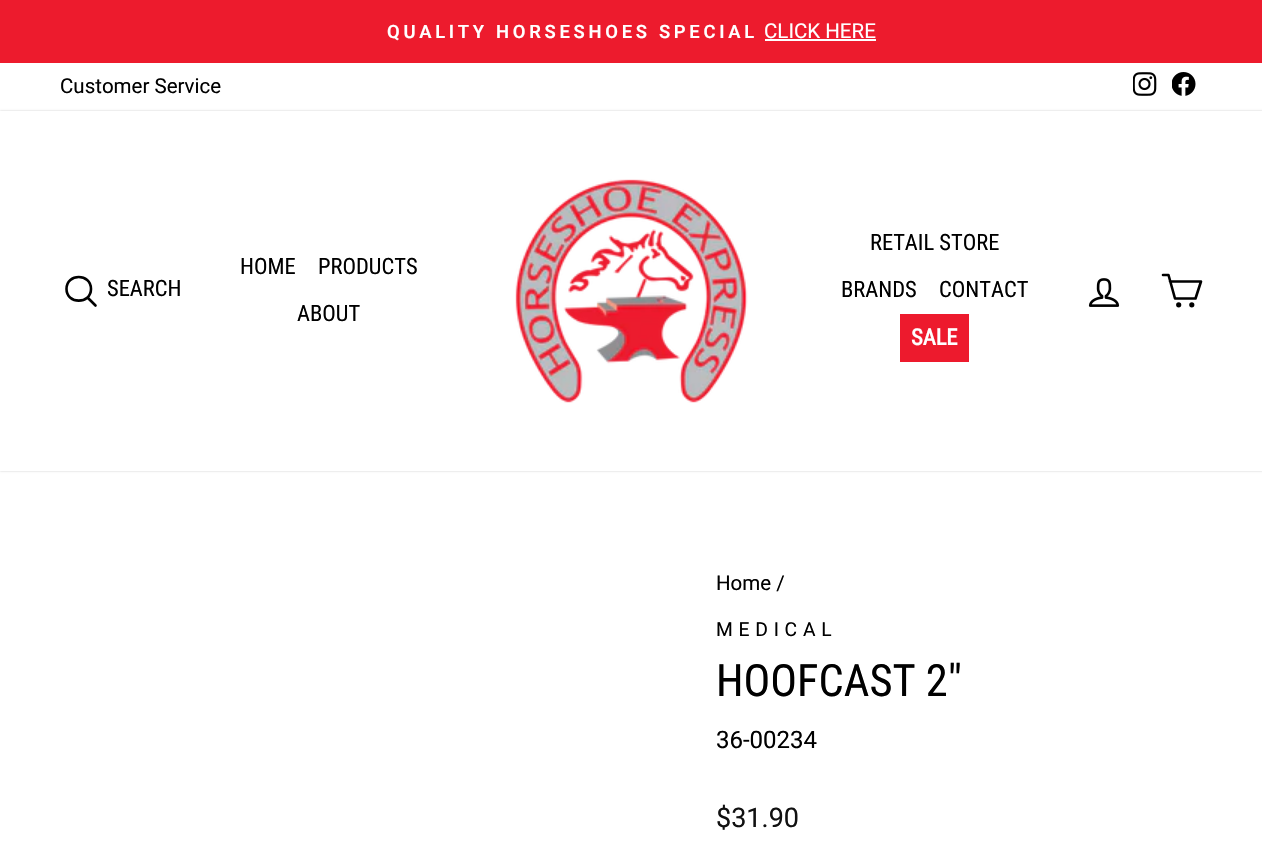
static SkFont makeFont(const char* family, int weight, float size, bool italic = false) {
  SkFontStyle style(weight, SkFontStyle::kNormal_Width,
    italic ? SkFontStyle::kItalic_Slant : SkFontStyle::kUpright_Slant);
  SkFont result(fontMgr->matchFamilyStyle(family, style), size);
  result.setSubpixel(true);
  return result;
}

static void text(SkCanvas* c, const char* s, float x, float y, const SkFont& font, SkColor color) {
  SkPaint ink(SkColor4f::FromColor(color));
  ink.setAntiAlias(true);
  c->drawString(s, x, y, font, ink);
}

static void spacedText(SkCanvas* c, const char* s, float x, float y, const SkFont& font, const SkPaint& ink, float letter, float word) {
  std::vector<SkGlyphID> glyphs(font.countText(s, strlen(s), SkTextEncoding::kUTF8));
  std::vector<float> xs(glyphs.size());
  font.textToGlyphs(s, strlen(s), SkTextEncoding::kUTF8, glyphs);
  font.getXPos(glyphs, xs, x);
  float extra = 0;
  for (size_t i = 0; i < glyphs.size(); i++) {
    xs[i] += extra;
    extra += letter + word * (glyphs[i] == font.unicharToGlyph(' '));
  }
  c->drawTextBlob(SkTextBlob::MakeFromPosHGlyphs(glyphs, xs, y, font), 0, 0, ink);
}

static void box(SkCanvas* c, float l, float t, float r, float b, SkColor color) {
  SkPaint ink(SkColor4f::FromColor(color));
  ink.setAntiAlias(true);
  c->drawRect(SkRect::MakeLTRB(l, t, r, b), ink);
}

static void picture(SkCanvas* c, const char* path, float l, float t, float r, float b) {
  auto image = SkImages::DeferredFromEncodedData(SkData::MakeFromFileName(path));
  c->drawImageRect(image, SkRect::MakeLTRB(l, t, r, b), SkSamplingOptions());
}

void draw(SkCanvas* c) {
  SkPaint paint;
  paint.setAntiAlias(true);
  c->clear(0xffffffff);
  box(c, 0, 0, 1262, 63, 0xffed1b2d);
  SkFont face1 = makeFont("Roboto", 600, 18.4f);
  paint.setColor(0xffffffff);
  spacedText(c, "QUALITY HORSESHOES SPECIAL", 387, 38, face1, paint, 3.7f, 0);
  SkFont face2 = makeFont("Roboto", 400, 20.5f);
  text(c, "CLICK HERE", 764, 38, face2, 0xffffffff);
  box(c, 765, 39, 876, 41, 0xffffffff);
  text(c, "Customer Service", 60, 93, face2, 0xff000000);
  picture(c, "img_01.png", 1133, 72, 1157, 96);
  picture(c, "img_02.png", 1172, 72, 1196, 96);
  c->save();
  c->clipPath(SkPathBuilder(SkPathFillType::kEvenOdd).moveTo(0, 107).lineTo(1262, 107).lineTo(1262, 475).lineTo(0, 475).close().moveTo(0, 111).lineTo(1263, 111).lineTo(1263, 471).lineTo(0, 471).close().detach(), true);
  paint.setColor(0x33000000);
  paint.setMaskFilter(SkMaskFilter::MakeBlur(kNormal_SkBlurStyle, 1));
  c->drawRect(SkRect::MakeLTRB(0, 111, 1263, 471), paint);
  paint.setMaskFilter(nullptr);
  c->restore();
  paint.setStyle(SkPaint::kStroke_Style);
  paint.setStrokeWidth(2.6f);
  paint.setStrokeCap(SkPaint::kRound_Cap);
  paint.setStrokeJoin(SkPaint::kRound_Join);
  paint.setColor(0xff000000);
  c->drawPath(SkPathBuilder().moveTo(91, 289).cubicTo(91, 304.5f, 66.5f, 304.5f, 66.5f, 289).cubicTo(66.5f, 273, 91, 273, 91, 289).close().moveTo(95.5f, 305.5f).lineTo(87.5f, 297.5f).detach(), paint);
  SkFont face3 = makeFont("Roboto Condensed", 400, 22.5f);
  text(c, "SEARCH", 107, 296, face3, 0xff000000);
  text(c, "HOME", 240, 274, face3, 0xff000000);
  text(c, "PRODUCTS", 318, 274, face3, 0xff000000);
  text(c, "ABOUT", 297, 321, face3, 0xff000000);
  picture(c, "img_03.png", 515, 179, 748, 403);
  text(c, "RETAIL STORE", 870, 250, face3, 0xff000000);
  text(c, "BRANDS", 841, 297, face3, 0xff000000);
  text(c, "CONTACT", 939, 297, face3, 0xff000000);
  box(c, 900, 314, 969, 362, 0xffed1a2d);
  SkFont face4 = makeFont("Roboto Condensed", 700, 22.5f);
  text(c, "SALE", 911, 345, face4, 0xffffffff);
  picture(c, "img_04.png", 1088, 278, 1120, 307);
  c->drawPath(SkPathBuilder().moveTo(1170, 281.5f).lineTo(1201, 281.5f).lineTo(1195.5f, 298.5f).lineTo(1175, 298.5f).lineTo(1168.5f, 275).lineTo(1163, 275).detach(), paint);
  paint.setStrokeCap(SkPaint::kButt_Cap);
  paint.setStrokeJoin(SkPaint::kMiter_Join);
  c->drawCircle(1178.7f, 304.8f, 1.3f, paint);
  c->drawCircle(1191.8f, 304.8f, 1.3f, paint);
  text(c, "Home /", 716, 590, face2, 0xff000000);
  SkFont face5 = makeFont("Roboto", 400, 19.25f);
  paint.setStyle(SkPaint::kFill_Style);
  spacedText(c, "MEDICAL", 716, 636, face5, paint, 5.75f, 0);
  SkFont face6 = makeFont("Roboto Condensed", 400, 44.5f);
  text(c, "HOOFCAST 2\"", 716, 696, face6, 0xff000000);
  SkFont face7 = makeFont("Roboto", 400, 24);
  text(c, "36-00234", 716, 748, face7, 0xff000000);
  SkFont face8 = makeFont("Roboto", 400, 27);
  text(c, "$31.90", 716, 827, face8, 0xff111111);
}
